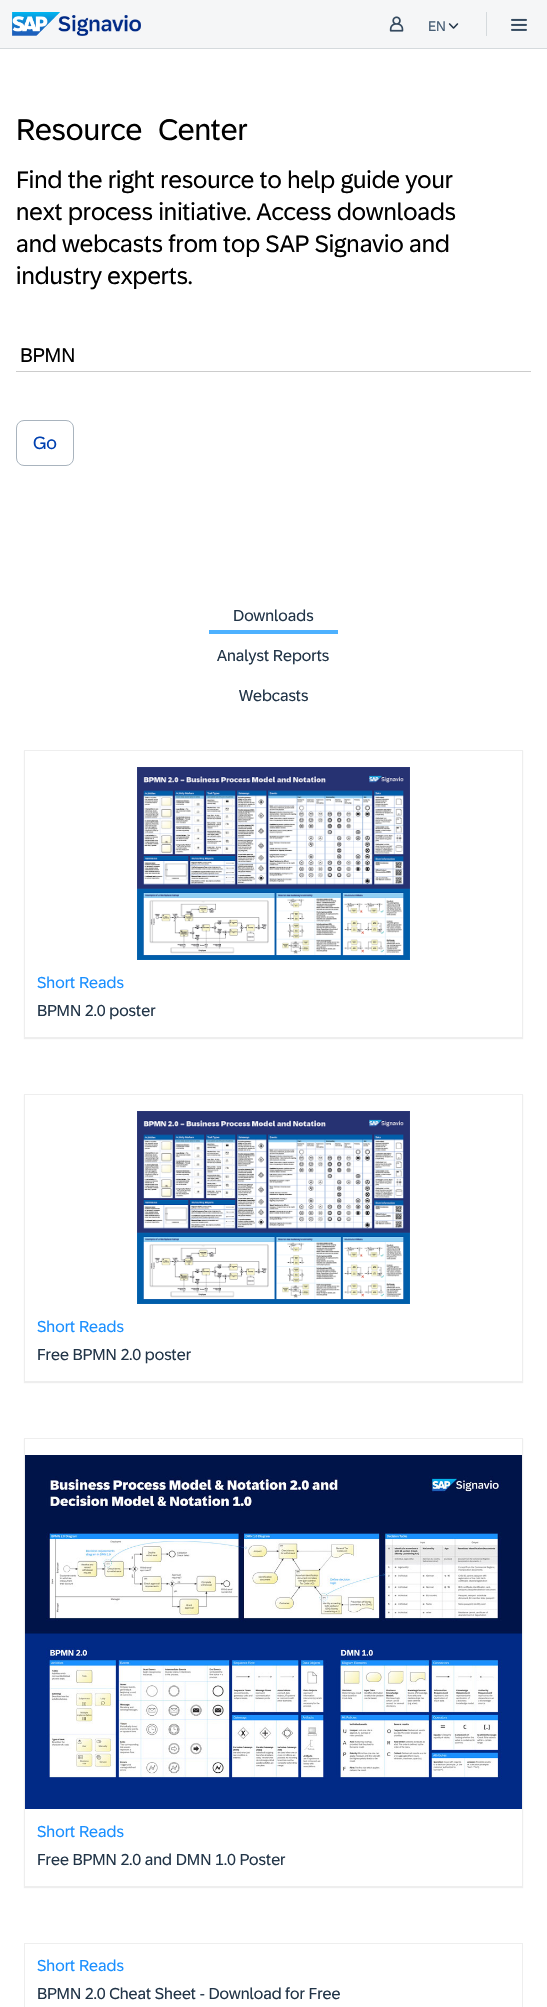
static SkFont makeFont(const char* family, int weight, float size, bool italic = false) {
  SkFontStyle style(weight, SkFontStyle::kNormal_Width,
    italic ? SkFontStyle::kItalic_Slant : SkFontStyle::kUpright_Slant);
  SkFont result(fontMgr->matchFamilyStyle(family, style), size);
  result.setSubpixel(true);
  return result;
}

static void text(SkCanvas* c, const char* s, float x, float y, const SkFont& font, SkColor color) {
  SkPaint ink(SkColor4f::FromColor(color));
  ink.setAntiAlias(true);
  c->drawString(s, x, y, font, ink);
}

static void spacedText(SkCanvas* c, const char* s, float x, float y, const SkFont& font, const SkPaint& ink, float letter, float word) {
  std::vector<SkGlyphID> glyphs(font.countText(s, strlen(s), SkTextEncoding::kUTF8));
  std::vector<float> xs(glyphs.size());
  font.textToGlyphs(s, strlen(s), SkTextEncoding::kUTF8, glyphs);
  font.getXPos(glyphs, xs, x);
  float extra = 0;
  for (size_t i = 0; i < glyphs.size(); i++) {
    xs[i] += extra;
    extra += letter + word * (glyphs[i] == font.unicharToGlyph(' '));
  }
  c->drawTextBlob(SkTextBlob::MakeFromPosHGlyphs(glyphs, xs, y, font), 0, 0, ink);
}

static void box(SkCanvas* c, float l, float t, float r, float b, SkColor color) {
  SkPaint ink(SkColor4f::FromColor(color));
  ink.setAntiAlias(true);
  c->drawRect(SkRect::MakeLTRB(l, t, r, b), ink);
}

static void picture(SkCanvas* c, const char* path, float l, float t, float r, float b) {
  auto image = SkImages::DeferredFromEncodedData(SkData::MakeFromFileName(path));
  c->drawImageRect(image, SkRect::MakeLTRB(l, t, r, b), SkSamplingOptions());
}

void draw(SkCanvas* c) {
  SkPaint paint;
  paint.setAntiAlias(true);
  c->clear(0xffffffff);
  box(c, 0, 0, 547, 48, 0xfff5f6f7);
  box(c, 0, 48, 547, 49, 0xffd5dadd);
  picture(c, "img_01.png", 12, 12, 141, 36);
  picture(c, "img_02.png", 389, 16, 404, 32);
  SkFont face1 = makeFont("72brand", 400, 14);
  text(c, "EN", 428, 31, face1, 0xff475e75);
  picture(c, "img_03.png", 448, 23, 459, 29);
  box(c, 486, 12, 487, 36, 0xffd5dadd);
  picture(c, "img_04.png", 511, 18, 527, 31);
  SkFont face2 = makeFont("72brand", 400, 30);
  paint.setColor(0xff000000);
  spacedText(c, "Resource Center", 16, 140, face2, paint, 0, 9);
  SkFont face3 = makeFont("72brand", 400, 24);
  text(c, "Find the right resource to help guide your", 16, 188, face3, 0xff000000);
  text(c, "next process initiative. Access downloads", 16, 220, face3, 0xff000000);
  text(c, "and webcasts from top SAP Signavio and", 16, 252, face3, 0xff000000);
  text(c, "industry experts.", 16, 284, face3, 0xff000000);
  box(c, 16, 371, 531, 372, 0xffcccccc);
  SkFont face4 = makeFont("72brand", 400, 20);
  text(c, "BPMN", 20, 362, face4, 0xff000000);
  paint.setStyle(SkPaint::kStroke_Style);
  paint.setStrokeWidth(1);
  paint.setColor(0xffa9b4be);
  c->drawRoundRect(SkRect::MakeLTRB(16.5f, 420.5f, 73.5f, 465.5f), 7.5f, 7.5f, paint);
  SkFont face5 = makeFont("72brand", 400, 18);
  text(c, "Go", 33, 449, face5, 0xff0040b0);
  box(c, 209, 630, 338, 634, 0xff4db1ff);
  SkFont face6 = makeFont("72brand", 400, 16);
  text(c, "Downloads", 233, 621, face6, 0xff223548);
  text(c, "Analyst Reports", 217, 661, face6, 0xff223548);
  text(c, "Webcasts", 239, 701, face6, 0xff223548);
  c->save();
  c->clipPath(SkPathBuilder(SkPathFillType::kEvenOdd).moveTo(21, 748).lineTo(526, 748).lineTo(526, 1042).lineTo(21, 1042).close().moveTo(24, 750).lineTo(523, 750).lineTo(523, 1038).lineTo(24, 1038).close().detach(), true);
  paint.setStyle(SkPaint::kFill_Style);
  paint.setColor(0xffeeeeee);
  paint.setMaskFilter(SkMaskFilter::MakeBlur(kNormal_SkBlurStyle, 0.5f));
  c->drawRect(SkRect::MakeLTRB(24, 751, 523, 1039), paint);
  paint.setMaskFilter(nullptr);
  c->restore();
  paint.setStyle(SkPaint::kStroke_Style);
  c->drawRect(SkRect::MakeLTRB(24.5f, 750.5f, 522.5f, 1037.5f), paint);
  picture(c, "img_05.png", 137, 767, 410, 960);
  text(c, "Short Reads", 37, 988, face6, 0xff1b90ff);
  text(c, "BPMN 2.0 poster", 37, 1016, face6, 0xff223548);
  c->save();
  c->clipPath(SkPathBuilder(SkPathFillType::kEvenOdd).moveTo(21, 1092).lineTo(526, 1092).lineTo(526, 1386).lineTo(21, 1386).close().moveTo(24, 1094).lineTo(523, 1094).lineTo(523, 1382).lineTo(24, 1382).close().detach(), true);
  paint.setStyle(SkPaint::kFill_Style);
  paint.setMaskFilter(SkMaskFilter::MakeBlur(kNormal_SkBlurStyle, 0.5f));
  c->drawRect(SkRect::MakeLTRB(24, 1095, 523, 1383), paint);
  paint.setMaskFilter(nullptr);
  c->restore();
  paint.setStyle(SkPaint::kStroke_Style);
  c->drawRect(SkRect::MakeLTRB(24.5f, 1094.5f, 522.5f, 1381.5f), paint);
  picture(c, "img_05.png", 137, 1111, 410, 1304);
  text(c, "Short Reads", 37, 1332, face6, 0xff1b90ff);
  text(c, "Free BPMN 2.0 poster", 37, 1360, face6, 0xff223548);
  c->save();
  c->clipPath(SkPathBuilder(SkPathFillType::kEvenOdd).moveTo(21, 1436).lineTo(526, 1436).lineTo(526, 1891).lineTo(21, 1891).close().moveTo(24, 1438).lineTo(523, 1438).lineTo(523, 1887).lineTo(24, 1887).close().detach(), true);
  paint.setStyle(SkPaint::kFill_Style);
  paint.setMaskFilter(SkMaskFilter::MakeBlur(kNormal_SkBlurStyle, 0.5f));
  c->drawRect(SkRect::MakeLTRB(24, 1439, 523, 1888), paint);
  paint.setMaskFilter(nullptr);
  c->restore();
  paint.setStyle(SkPaint::kStroke_Style);
  c->drawRect(SkRect::MakeLTRB(24.5f, 1438.5f, 522.5f, 1886.5f), paint);
  picture(c, "img_06.png", 25, 1455, 522, 1809);
  text(c, "Short Reads", 37, 1837, face6, 0xff1b90ff);
  text(c, "Free BPMN 2.0 and DMN 1.0 Poster", 37, 1865, face6, 0xff223548);
  c->drawRect(SkRect::MakeLTRB(24.5f, 1943.5f, 522.5f, 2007.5f), paint);
  text(c, "Short Reads", 37, 1971, face6, 0xff1b90ff);
  text(c, "BPMN 2.0 Cheat Sheet - Download for Free", 37, 1999, face6, 0xff223548);
}
